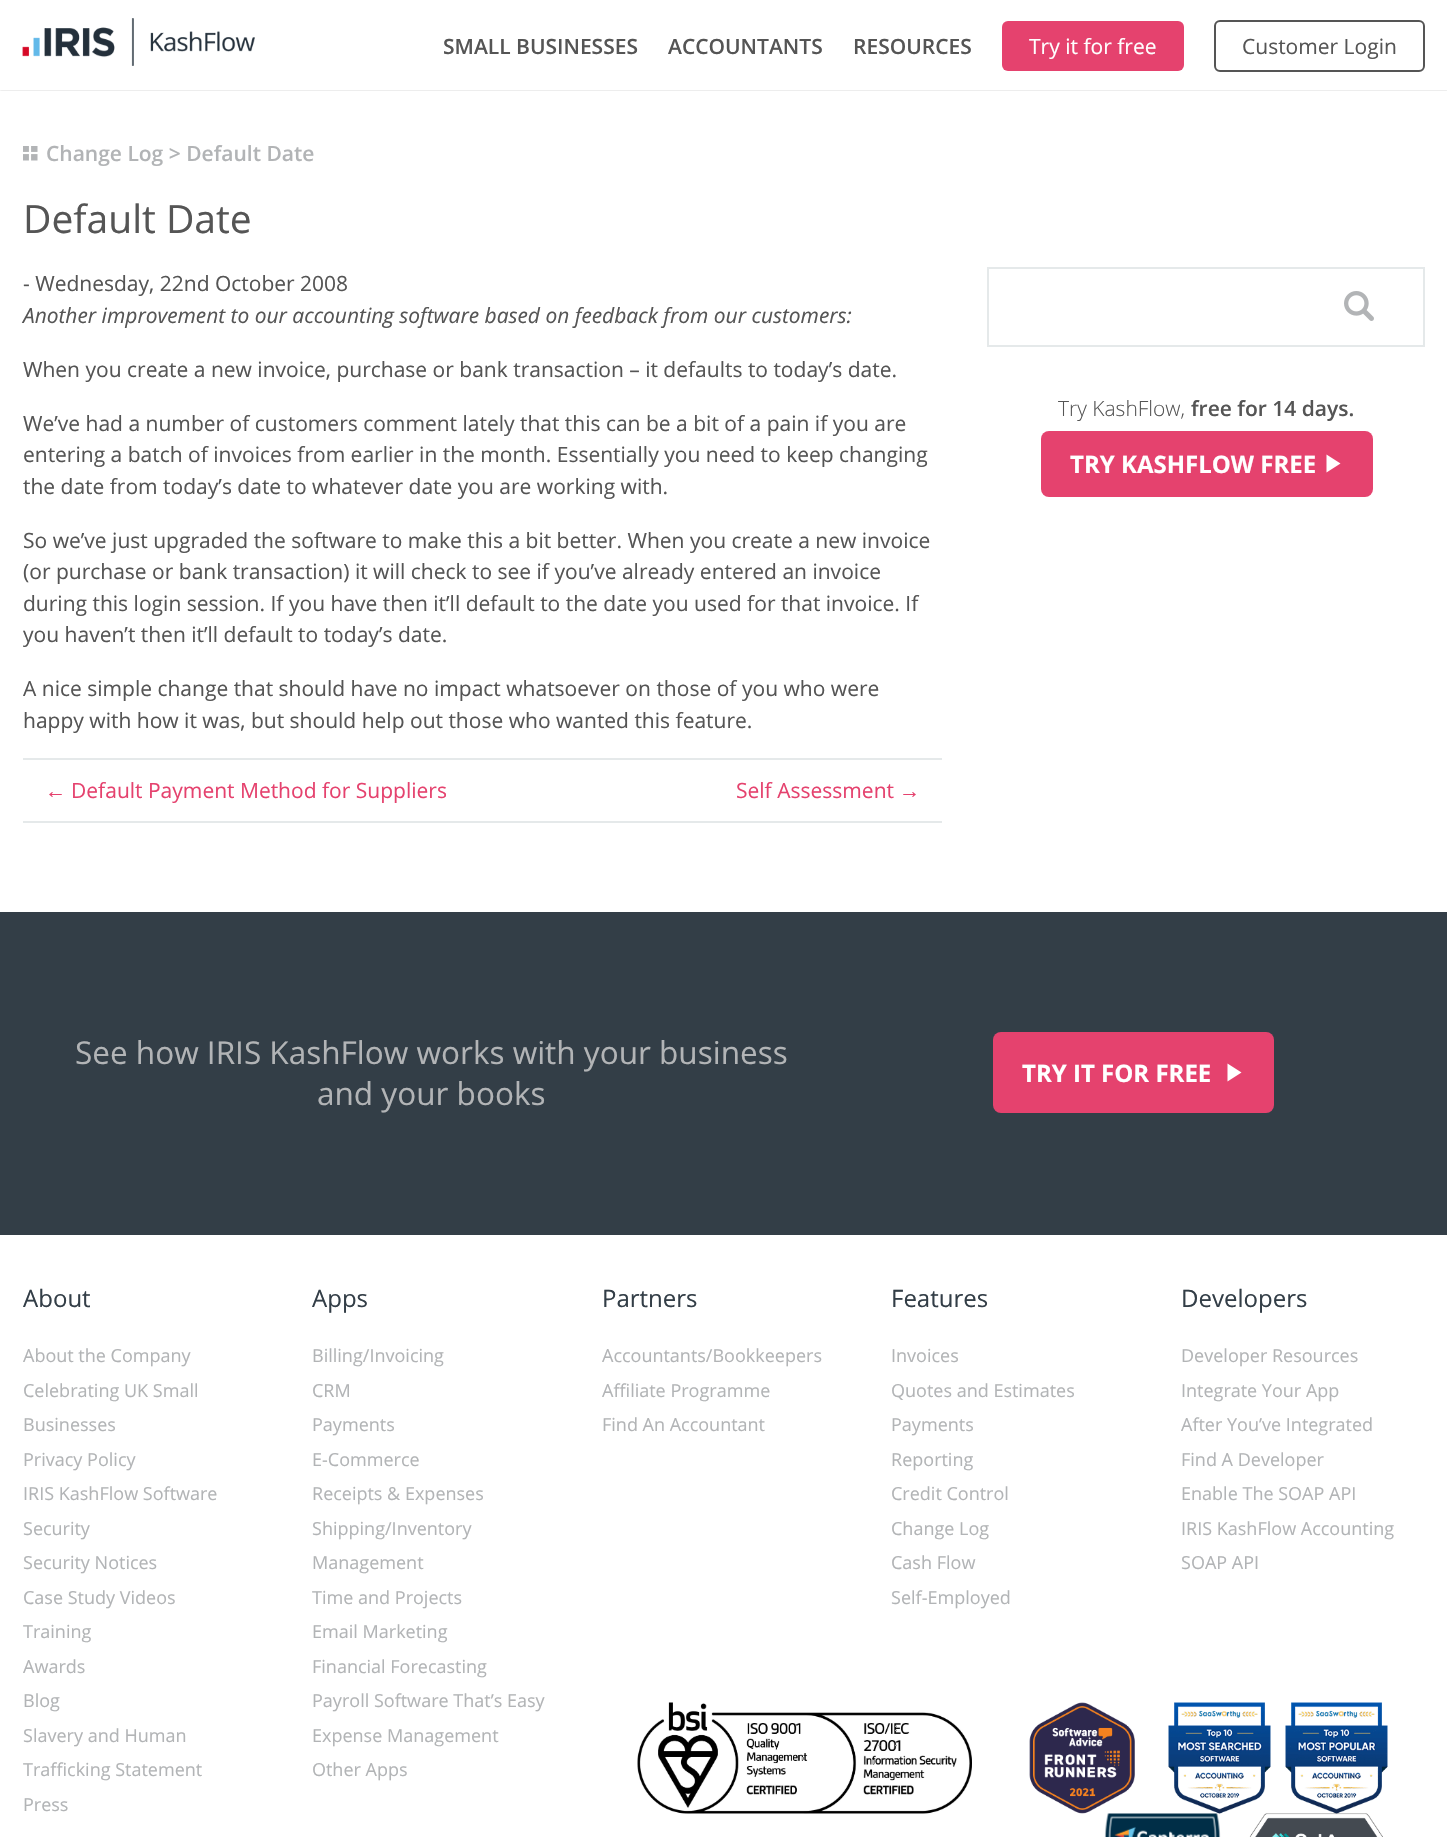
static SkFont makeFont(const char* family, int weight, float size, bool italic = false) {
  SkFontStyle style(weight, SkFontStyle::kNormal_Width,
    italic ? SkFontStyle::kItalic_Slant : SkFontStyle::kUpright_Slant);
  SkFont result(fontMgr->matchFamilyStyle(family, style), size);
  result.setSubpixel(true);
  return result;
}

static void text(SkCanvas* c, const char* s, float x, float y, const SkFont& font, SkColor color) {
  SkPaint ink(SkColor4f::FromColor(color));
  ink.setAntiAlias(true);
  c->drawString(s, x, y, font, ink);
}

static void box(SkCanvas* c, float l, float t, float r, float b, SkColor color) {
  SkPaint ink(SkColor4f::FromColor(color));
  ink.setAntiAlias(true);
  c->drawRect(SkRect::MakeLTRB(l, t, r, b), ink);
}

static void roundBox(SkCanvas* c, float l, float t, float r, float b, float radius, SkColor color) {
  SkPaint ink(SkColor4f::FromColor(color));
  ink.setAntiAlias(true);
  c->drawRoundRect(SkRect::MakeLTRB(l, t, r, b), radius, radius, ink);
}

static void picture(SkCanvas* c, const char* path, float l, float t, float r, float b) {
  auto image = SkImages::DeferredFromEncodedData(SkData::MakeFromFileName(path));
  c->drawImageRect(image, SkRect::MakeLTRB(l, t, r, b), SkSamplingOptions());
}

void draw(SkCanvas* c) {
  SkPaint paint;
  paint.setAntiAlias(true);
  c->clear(0xffffffff);
  c->save();
  c->clipRect(SkRect::MakeLTRB(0, 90, 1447, 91));
  paint.setColor(0x36000000);
  paint.setMaskFilter(SkMaskFilter::MakeBlur(kNormal_SkBlurStyle, 1));
  c->drawRect(SkRect::MakeLTRB(0, 0, 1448, 90), paint);
  paint.setMaskFilter(nullptr);
  c->restore();
  picture(c, "img_01.png", 22, 18, 255, 66);
  SkFont face1 = makeFont("Open Sans", 600, 21);
  text(c, "SMALL BUSINESSES", 443, 54, face1, 0xff555555);
  text(c, "ACCOUNTANTS", 668, 54, face1, 0xff555555);
  text(c, "RESOURCES", 853, 54, face1, 0xff555555);
  roundBox(c, 1002, 21, 1184, 71, 6, 0xffe5426e);
  SkFont face2 = makeFont("Open Sans", 400, 21);
  text(c, "Try it for free", 1029, 54, face2, 0xffffffff);
  paint.setStyle(SkPaint::kStroke_Style);
  paint.setStrokeWidth(2);
  paint.setColor(0xff555555);
  c->drawRoundRect(SkRect::MakeLTRB(1215, 21, 1424, 71), 5, 5, paint);
  text(c, "Customer Login", 1242, 54, face2, 0xff555555);
  picture(c, "img_02.png", 23, 146, 38, 161);
  text(c, "Change Log > Default Date", 46, 161, face1, 0xffb2b4b6);
  SkFont face3 = makeFont("Open Sans", 400, 39);
  text(c, "Default Date", 23, 233, face3, 0xff555555);
  text(c, "- Wednesday, 22nd October 2008", 23, 291, face2, 0xff555555);
  SkFont face4 = makeFont("Open Sans", 400, 21, true);
  text(c, "Another improvement to our accounting software based on feedback from our customers:", 23, 323, face4, 0xff555555);
  text(c, "When you create a new invoice, purchase or bank transaction – it defaults to today’s date.", 23, 377, face2, 0xff555555);
  text(c, "We’ve had a number of customers comment lately that this can be a bit of a pain if you are", 23, 431, face2, 0xff555555);
  text(c, "entering a batch of invoices from earlier in the month. Essentially you need to keep changing", 23, 462, face2, 0xff555555);
  text(c, "the date from today’s date to whatever date you are working with.", 23, 494, face2, 0xff555555);
  text(c, "So we’ve just upgraded the software to make this a bit better. When you create a new invoice", 23, 548, face2, 0xff555555);
  text(c, "(or purchase or bank transaction) it will check to see if you’ve already entered an invoice", 23, 579, face2, 0xff555555);
  text(c, "during this login session. If you have then it’ll default to the date you used for that invoice. If", 23, 611, face2, 0xff555555);
  text(c, "you haven’t then it’ll default to today’s date.", 23, 642, face2, 0xff555555);
  text(c, "A nice simple change that should have no impact whatsoever on those of you who were", 23, 696, face2, 0xff555555);
  text(c, "happy with how it was, but should help out those who wanted this feature.", 23, 728, face2, 0xff555555);
  box(c, 23, 758, 942, 760, 0xffe5e9ea);
  box(c, 23, 821, 942, 823, 0xffe5e9ea);
  SkFont face5 = makeFont("Liberation Sans", 400, 21);
  text(c, "←", 45, 798, face5, 0xffe5426e);
  text(c, "Default Payment Method for Suppliers", 71, 798, face2, 0xffe5426e);
  text(c, "Self Assessment", 736, 798, face2, 0xffe5426e);
  text(c, "→", 899, 798, face5, 0xffe5426e);
  paint.setColor(0xffe5e9ea);
  c->drawRect(SkRect::MakeLTRB(988, 268, 1424, 346), paint);
  picture(c, "img_03.png", 1344, 291, 1374, 321);
  SkFont face6 = makeFont("Open Sans", 300, 21);
  text(c, "Try KashFlow,", 1058, 416, face6, 0xff555555);
  text(c, "free for 14 days.", 1191, 416, face1, 0xff555555);
  roundBox(c, 1041, 431, 1373, 497, 8, 0xffe5426e);
  SkFont face7 = makeFont("Open Sans", 700, 24);
  text(c, "TRY KASHFLOW FREE", 1070, 473, face7, 0xffffffff);
  paint.setStyle(SkPaint::kFill_Style);
  paint.setColor(0xffffffff);
  c->drawPath(SkPathBuilder().moveTo(1326.5f, 454.5f).lineTo(1326.5f, 472.5f).lineTo(1340.5f, 463.5f).close().detach(), paint);
  box(c, 0, 912, 1447, 1235, 0xff333e47);
  SkFont face8 = makeFont("Open Sans", 400, 31.5f);
  text(c, "See how IRIS KashFlow works with your business", 75, 1064, face8, 0xffb2b4b6);
  text(c, "and your books", 317, 1105, face8, 0xffb2b4b6);
  roundBox(c, 993, 1032, 1274, 1113, 8, 0xffe5426e);
  text(c, "TRY IT FOR FREE", 1022, 1082, face7, 0xffffffff);
  c->drawPath(SkPathBuilder().moveTo(1227.5f, 1063.5f).lineTo(1227.5f, 1081.5f).lineTo(1241.5f, 1072.5f).close().detach(), paint);
  SkFont face9 = makeFont("Open Sans", 400, 24);
  text(c, "About", 23, 1307, face9, 0xff333e47);
  SkFont face10 = makeFont("Open Sans", 400, 18);
  text(c, "About the Company", 23, 1362, face10, 0xffb2b4b6);
  text(c, "Celebrating UK Small", 23, 1397, face10, 0xffb2b4b6);
  text(c, "Businesses", 23, 1431, face10, 0xffb2b4b6);
  text(c, "Privacy Policy", 23, 1466, face10, 0xffb2b4b6);
  text(c, "IRIS KashFlow Software", 23, 1500, face10, 0xffb2b4b6);
  text(c, "Security", 23, 1535, face10, 0xffb2b4b6);
  text(c, "Security Notices", 23, 1569, face10, 0xffb2b4b6);
  text(c, "Case Study Videos", 23, 1604, face10, 0xffb2b4b6);
  text(c, "Training", 23, 1638, face10, 0xffb2b4b6);
  text(c, "Awards", 23, 1673, face10, 0xffb2b4b6);
  text(c, "Blog", 23, 1707, face10, 0xffb2b4b6);
  text(c, "Slavery and Human", 23, 1742, face10, 0xffb2b4b6);
  text(c, "Trafficking Statement", 23, 1776, face10, 0xffb2b4b6);
  text(c, "Press", 23, 1811, face10, 0xffb2b4b6);
  text(c, "Apps", 312, 1307, face9, 0xff333e47);
  text(c, "Billing/Invoicing", 312, 1362, face10, 0xffb2b4b6);
  text(c, "CRM", 312, 1397, face10, 0xffb2b4b6);
  text(c, "Payments", 312, 1431, face10, 0xffb2b4b6);
  text(c, "E-Commerce", 312, 1466, face10, 0xffb2b4b6);
  text(c, "Receipts & Expenses", 312, 1500, face10, 0xffb2b4b6);
  text(c, "Shipping/Inventory", 312, 1535, face10, 0xffb2b4b6);
  text(c, "Management", 312, 1569, face10, 0xffb2b4b6);
  text(c, "Time and Projects", 312, 1604, face10, 0xffb2b4b6);
  text(c, "Email Marketing", 312, 1638, face10, 0xffb2b4b6);
  text(c, "Financial Forecasting", 312, 1673, face10, 0xffb2b4b6);
  text(c, "Payroll Software That’s Easy", 312, 1707, face10, 0xffb2b4b6);
  text(c, "Expense Management", 312, 1742, face10, 0xffb2b4b6);
  text(c, "Other Apps", 312, 1776, face10, 0xffb2b4b6);
  text(c, "Partners", 602, 1307, face9, 0xff333e47);
  text(c, "Accountants/Bookkeepers", 602, 1362, face10, 0xffb2b4b6);
  text(c, "Affiliate Programme", 602, 1397, face10, 0xffb2b4b6);
  text(c, "Find An Accountant", 602, 1431, face10, 0xffb2b4b6);
  text(c, "Features", 891, 1307, face9, 0xff333e47);
  text(c, "Invoices", 891, 1362, face10, 0xffb2b4b6);
  text(c, "Quotes and Estimates", 891, 1397, face10, 0xffb2b4b6);
  text(c, "Payments", 891, 1431, face10, 0xffb2b4b6);
  text(c, "Reporting", 891, 1466, face10, 0xffb2b4b6);
  text(c, "Credit Control", 891, 1500, face10, 0xffb2b4b6);
  text(c, "Change Log", 891, 1535, face10, 0xffb2b4b6);
  text(c, "Cash Flow", 891, 1569, face10, 0xffb2b4b6);
  text(c, "Self-Employed", 891, 1604, face10, 0xffb2b4b6);
  text(c, "Developers", 1181, 1307, face9, 0xff333e47);
  text(c, "Developer Resources", 1181, 1362, face10, 0xffb2b4b6);
  text(c, "Integrate Your App", 1181, 1397, face10, 0xffb2b4b6);
  text(c, "After You’ve Integrated", 1181, 1431, face10, 0xffb2b4b6);
  text(c, "Find A Developer", 1181, 1466, face10, 0xffb2b4b6);
  text(c, "Enable The SOAP API", 1181, 1500, face10, 0xffb2b4b6);
  text(c, "IRIS KashFlow Accounting", 1181, 1535, face10, 0xffb2b4b6);
  text(c, "SOAP API", 1181, 1569, face10, 0xffb2b4b6);
  picture(c, "img_04.png", 637, 1702, 972, 1814);
  picture(c, "img_05.png", 1029, 1702, 1135, 1814);
  picture(c, "img_06.png", 1168, 1702, 1271, 1814);
  picture(c, "img_07.png", 1285, 1702, 1388, 1814);
  picture(c, "img_08.png", 1104, 1813, 1221, 1837);
  picture(c, "img_09.png", 1249, 1813, 1383, 1837);
}
